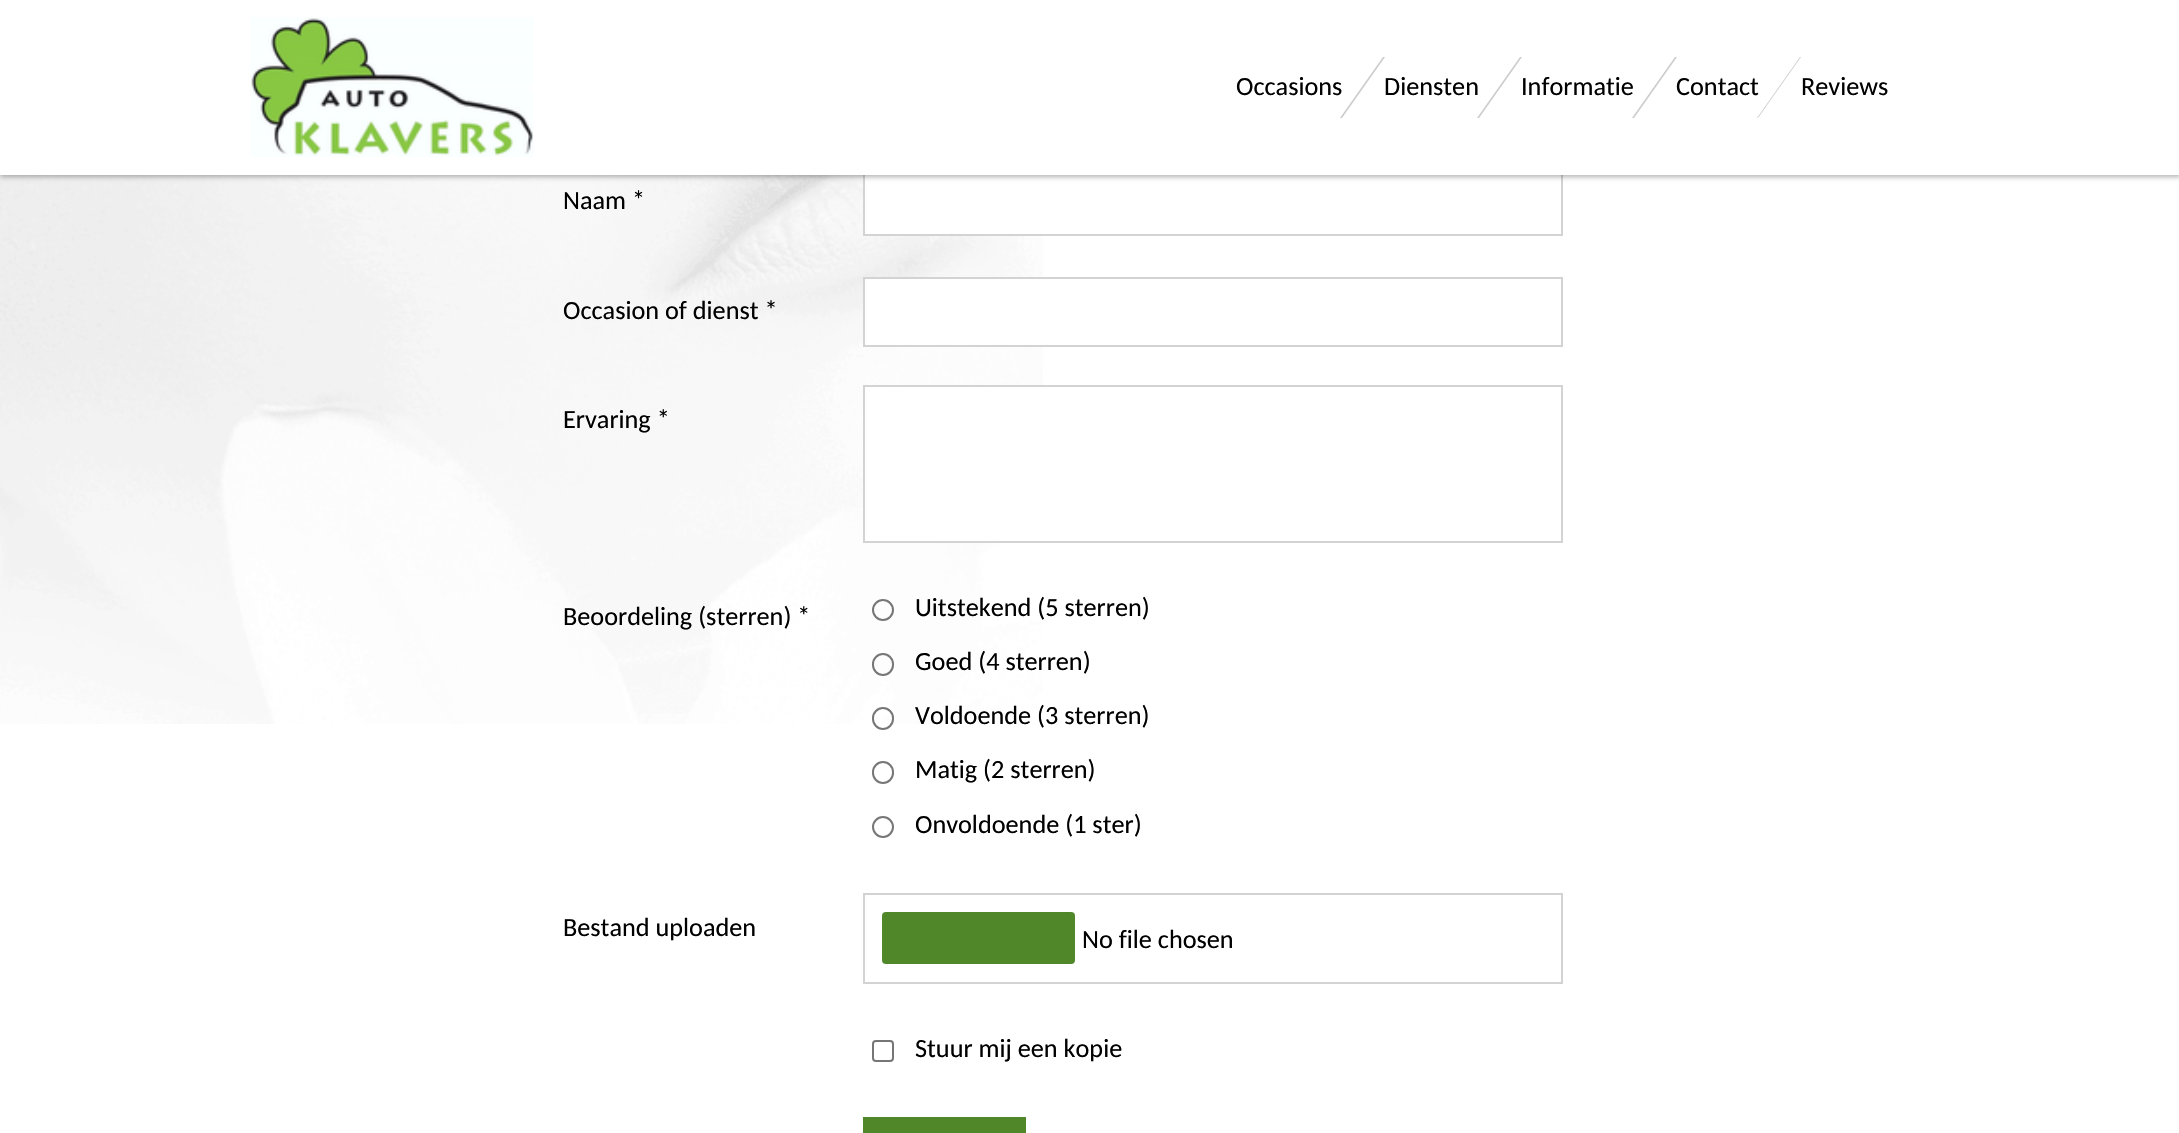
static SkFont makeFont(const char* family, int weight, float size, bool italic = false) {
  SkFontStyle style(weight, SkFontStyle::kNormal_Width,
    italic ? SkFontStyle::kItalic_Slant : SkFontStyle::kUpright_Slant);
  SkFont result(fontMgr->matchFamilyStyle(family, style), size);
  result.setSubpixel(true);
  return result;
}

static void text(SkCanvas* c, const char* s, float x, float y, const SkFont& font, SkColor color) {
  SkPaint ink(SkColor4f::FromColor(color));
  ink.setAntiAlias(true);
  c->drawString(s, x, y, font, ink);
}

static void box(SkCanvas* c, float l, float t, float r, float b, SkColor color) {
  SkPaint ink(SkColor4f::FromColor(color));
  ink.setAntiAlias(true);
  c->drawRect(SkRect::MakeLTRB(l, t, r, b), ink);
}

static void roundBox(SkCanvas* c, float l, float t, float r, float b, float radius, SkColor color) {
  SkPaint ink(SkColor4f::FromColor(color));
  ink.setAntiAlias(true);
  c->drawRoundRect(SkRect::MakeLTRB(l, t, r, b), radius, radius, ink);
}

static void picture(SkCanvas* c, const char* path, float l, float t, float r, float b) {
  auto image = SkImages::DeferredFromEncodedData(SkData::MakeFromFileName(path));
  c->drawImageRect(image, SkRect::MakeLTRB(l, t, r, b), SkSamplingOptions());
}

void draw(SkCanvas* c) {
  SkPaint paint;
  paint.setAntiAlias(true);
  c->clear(0xffffffff);
  picture(c, "img_02.png", 0, 175, 1043, 724);
  box(c, 865, 175, 1043, 234, 0xffffffff);
  paint.setStyle(SkPaint::kStroke_Style);
  paint.setStrokeWidth(2);
  paint.setColor(0xffd3d3d3);
  c->drawRect(SkRect::MakeLTRB(864, 167, 1562, 235), paint);
  paint.setStyle(SkPaint::kFill_Style);
  paint.setColor(0x4d000000);
  paint.setMaskFilter(SkMaskFilter::MakeBlur(kNormal_SkBlurStyle, 2.5f));
  c->drawRect(SkRect::MakeLTRB(0, 2, 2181, 177), paint);
  paint.setMaskFilter(nullptr);
  box(c, 0, 0, 2179, 175, 0xffffffff);
  picture(c, "img_01.png", 250, 17, 534, 157);
  paint.setColor(0xffcccccc);
  c->drawPath(SkPathBuilder().moveTo(1383, 57).lineTo(1385, 57).lineTo(1342, 118).lineTo(1340, 118).close().detach(), paint);
  SkFont face1 = makeFont("Carlito", 400, 26.25f);
  text(c, "Occasions", 1236, 95, face1, 0xff000000);
  c->drawPath(SkPathBuilder().moveTo(1520, 57).lineTo(1522, 57).lineTo(1479, 118).lineTo(1477, 118).close().detach(), paint);
  text(c, "Diensten", 1384, 95, face1, 0xff000000);
  c->drawPath(SkPathBuilder().moveTo(1675, 57).lineTo(1677, 57).lineTo(1634, 118).lineTo(1632, 118).close().detach(), paint);
  text(c, "Informatie", 1521, 95, face1, 0xff000000);
  c->drawPath(SkPathBuilder().moveTo(1800, 57).lineTo(1801, 57).lineTo(1758, 118).lineTo(1757, 118).close().detach(), paint);
  text(c, "Contact", 1676, 95, face1, 0xff000000);
  text(c, "Reviews", 1801, 95, face1, 0xff000000);
  text(c, "Naam *", 563, 209, face1, 0xff000000);
  text(c, "Occasion of dienst *", 563, 319, face1, 0xff000000);
  box(c, 865, 279, 1043, 345, 0xffffffff);
  paint.setStyle(SkPaint::kStroke_Style);
  paint.setColor(0xffd3d3d3);
  c->drawRect(SkRect::MakeLTRB(864, 278, 1562, 346), paint);
  text(c, "Ervaring *", 563, 428, face1, 0xff000000);
  box(c, 865, 387, 1043, 541, 0xffffffff);
  c->drawRect(SkRect::MakeLTRB(864, 386, 1562, 542), paint);
  text(c, "Beoordeling (sterren) *", 563, 625, face1, 0xff000000);
  paint.setColor(0xff767676);
  c->drawCircle(883, 610, 10, paint);
  text(c, "Uitstekend (5 sterren)", 915, 616, face1, 0xff000000);
  c->drawRoundRect(SkRect::MakeLTRB(873, 654, 893, 675), 10, 10, paint);
  text(c, "Goed (4 sterren)", 915, 670, face1, 0xff000000);
  c->drawRoundRect(SkRect::MakeLTRB(873, 708, 893, 729), 10, 10, paint);
  text(c, "Voldoende (3 sterren)", 915, 724, face1, 0xff000000);
  c->drawRoundRect(SkRect::MakeLTRB(873, 762, 893, 783), 10, 10, paint);
  text(c, "Matig (2 sterren)", 915, 778, face1, 0xff000000);
  c->drawCircle(883, 827, 10, paint);
  text(c, "Onvoldoende (1 ster)", 915, 833, face1, 0xff000000);
  text(c, "Bestand uploaden", 563, 936, face1, 0xff000000);
  paint.setColor(0xffd3d3d3);
  c->drawRect(SkRect::MakeLTRB(864, 894, 1562, 983), paint);
  roundBox(c, 882, 912, 1075, 964, 4, 0xff508729);
  text(c, "No file chosen", 1082, 948, face1, 0xff000000);
  paint.setColor(0xff767676);
  c->drawRoundRect(SkRect::MakeLTRB(873, 1041, 893, 1061), 3, 3, paint);
  text(c, "Stuur mij een kopie", 915, 1057, face1, 0xff000000);
  box(c, 863, 1117, 1026, 1133, 0xff508729);
}
